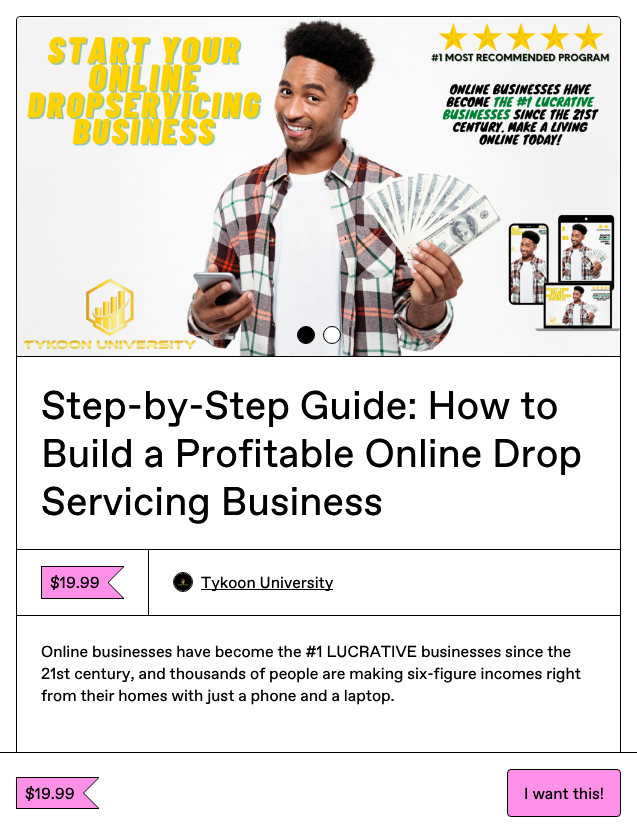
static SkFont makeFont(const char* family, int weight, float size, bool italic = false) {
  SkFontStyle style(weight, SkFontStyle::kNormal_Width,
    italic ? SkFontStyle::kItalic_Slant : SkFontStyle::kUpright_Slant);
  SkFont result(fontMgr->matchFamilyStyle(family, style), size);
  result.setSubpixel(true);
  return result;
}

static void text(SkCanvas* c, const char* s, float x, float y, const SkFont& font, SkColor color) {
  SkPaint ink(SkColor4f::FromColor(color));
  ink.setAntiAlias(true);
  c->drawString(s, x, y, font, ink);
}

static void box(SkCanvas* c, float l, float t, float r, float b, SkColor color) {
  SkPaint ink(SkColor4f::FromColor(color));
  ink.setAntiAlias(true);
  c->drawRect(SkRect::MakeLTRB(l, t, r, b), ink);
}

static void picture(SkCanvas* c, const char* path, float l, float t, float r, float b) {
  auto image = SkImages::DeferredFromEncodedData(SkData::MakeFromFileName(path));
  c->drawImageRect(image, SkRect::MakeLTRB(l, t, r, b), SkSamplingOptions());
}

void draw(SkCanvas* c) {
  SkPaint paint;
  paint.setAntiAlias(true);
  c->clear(0xffffffff);
  paint.setStyle(SkPaint::kStroke_Style);
  paint.setStrokeWidth(1);
  paint.setColor(0xff000000);
  c->drawRoundRect(SkRect::MakeLTRB(16.5f, 16.5f, 620.5f, 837.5f), 3.5f, 3.5f, paint);
  box(c, 17, 356, 620, 357, 0xff000000);
  picture(c, "img_01.png", 17, 17, 620, 356);
  paint.setStyle(SkPaint::kFill_Style);
  c->drawCircle(306, 335, 8.5f, paint);
  paint.setStyle(SkPaint::kStroke_Style);
  c->drawCircle(306, 335, 8.5f, paint);
  paint.setStyle(SkPaint::kFill_Style);
  paint.setColor(0xffffffff);
  c->drawCircle(332, 335, 8.5f, paint);
  paint.setStyle(SkPaint::kStroke_Style);
  paint.setColor(0xff000000);
  c->drawCircle(332, 335, 8.5f, paint);
  SkFont face1 = makeFont("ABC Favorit", 400, 40);
  text(c, "Step-by-Step Guide: How to", 41, 419, face1, 0xff000000);
  text(c, "Build a Profitable Online Drop", 41, 467, face1, 0xff000000);
  text(c, "Servicing Business", 41, 515, face1, 0xff000000);
  box(c, 149, 549, 620, 550, 0xff000000);
  c->drawRect(SkRect::MakeLTRB(16.5f, 549.5f, 148.5f, 615.5f), paint);
  box(c, 41, 566, 124, 567, 0xff000000);
  box(c, 41, 598, 124, 599, 0xff000000);
  box(c, 41, 566, 42, 599, 0xff000000);
  box(c, 42, 567, 108, 598, 0xffff90e8);
  paint.setStyle(SkPaint::kFill_Style);
  c->drawPath(SkPathBuilder().moveTo(108, 567).lineTo(124, 567).lineTo(109, 582).close().moveTo(124, 598).lineTo(108, 598).lineTo(109, 583).close().detach(), paint);
  box(c, 108, 581, 109, 584, 0xff000000);
  paint.setColor(0xffff90e8);
  c->drawPath(SkPathBuilder().moveTo(107, 567).lineTo(123, 567).lineTo(108, 582).close().moveTo(123, 598).lineTo(107, 598).lineTo(108, 583).close().detach(), paint);
  SkFont face2 = makeFont("ABC Favorit", 400, 16);
  text(c, "$19.99", 50, 588, face2, 0xff000000);
  paint.setStyle(SkPaint::kStroke_Style);
  paint.setColor(0xff000000);
  c->drawCircle(183, 582, 9.5f, paint);
  picture(c, "img_02.png", 174, 573, 192, 591);
  box(c, 201, 589, 333, 590, 0xff000000);
  text(c, "Tykoon University", 201, 588, face2, 0xff000000);
  box(c, 149, 615, 620, 616, 0xff000000);
  text(c, "Online businesses have become the #1 LUCRATIVE businesses since the", 41, 657, face2, 0xff000000);
  text(c, "21st century, and thousands of people are making six-figure incomes right", 41, 679, face2, 0xff000000);
  text(c, "from their homes with just a phone and a laptop.", 41, 701, face2, 0xff000000);
  box(c, 0, 752, 637, 753, 0xff000000);
  box(c, 16, 753, 621, 833, 0xffffffff);
  box(c, 16, 777, 99, 778, 0xff000000);
  box(c, 16, 808, 99, 809, 0xff000000);
  box(c, 16, 777, 17, 809, 0xff000000);
  box(c, 17, 778, 83, 808, 0xffff90e8);
  paint.setStyle(SkPaint::kFill_Style);
  c->drawPath(SkPathBuilder().moveTo(83, 778).lineTo(99, 778).lineTo(84, 793).close().moveTo(99, 808).lineTo(83, 808).lineTo(84, 793).close().detach(), paint);
  box(c, 83, 792, 84, 794, 0xff000000);
  paint.setColor(0xffff90e8);
  c->drawPath(SkPathBuilder().moveTo(82, 778).lineTo(98, 778).lineTo(83, 793).close().moveTo(98, 808).lineTo(82, 808).lineTo(83, 793).close().detach(), paint);
  text(c, "$19.99", 25, 799, face2, 0xff000000);
  c->drawRoundRect(SkRect::MakeLTRB(507.5f, 769.5f, 620.5f, 816.5f), 3.5f, 3.5f, paint);
  paint.setStyle(SkPaint::kStroke_Style);
  paint.setColor(0xff000000);
  c->drawRoundRect(SkRect::MakeLTRB(507.5f, 769.5f, 620.5f, 816.5f), 3.5f, 3.5f, paint);
  text(c, "I want this!", 524, 799, face2, 0xff000000);
}
